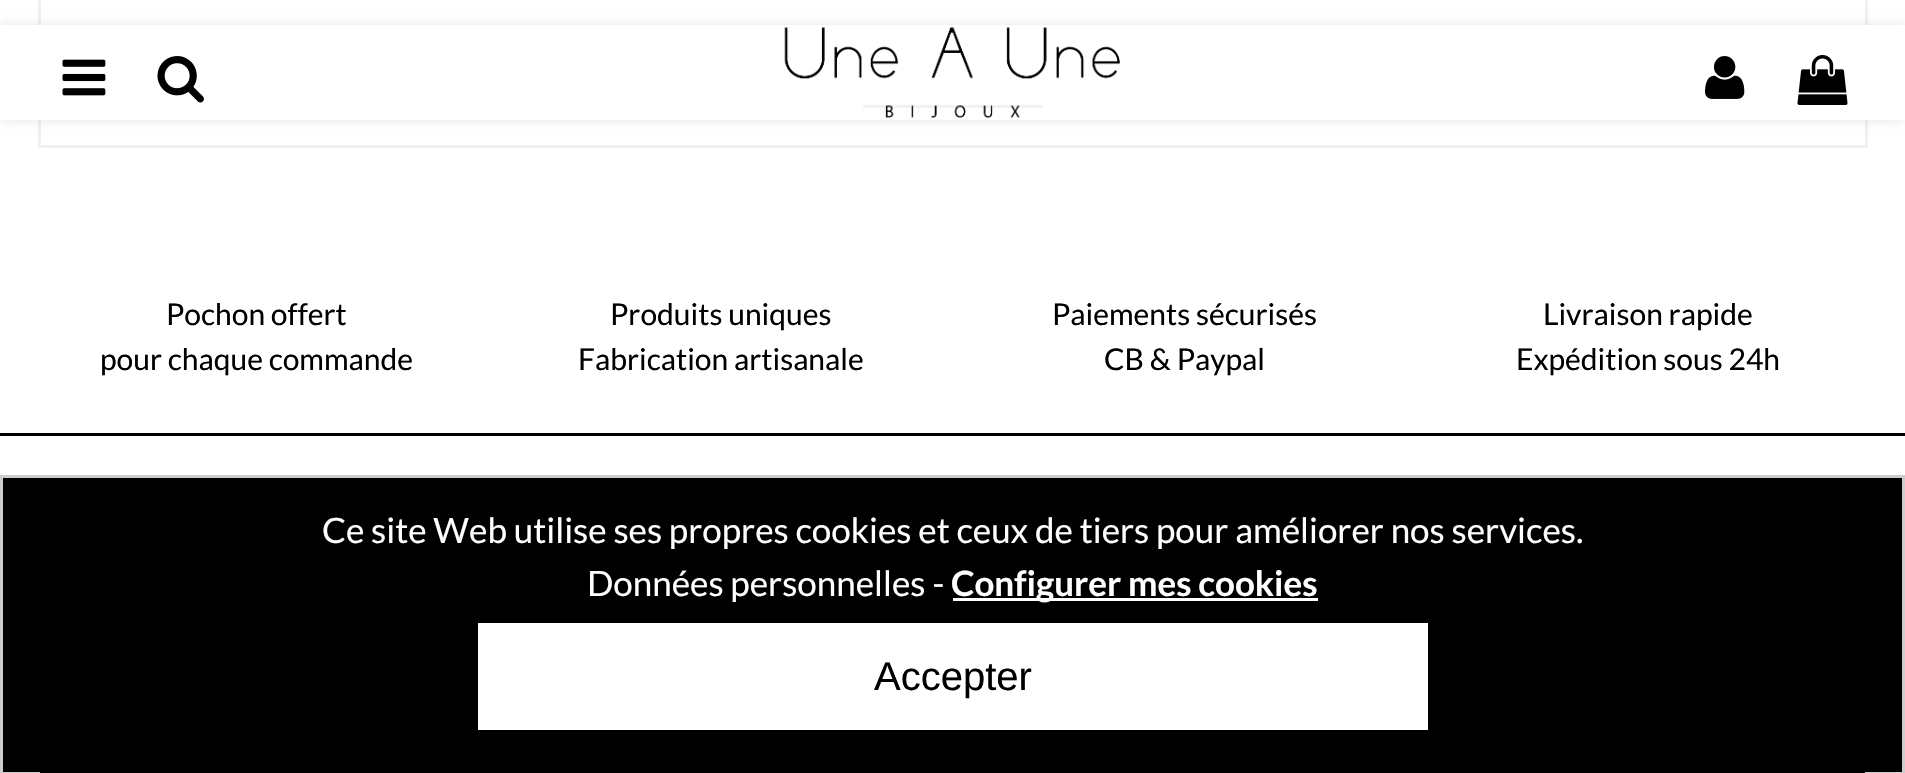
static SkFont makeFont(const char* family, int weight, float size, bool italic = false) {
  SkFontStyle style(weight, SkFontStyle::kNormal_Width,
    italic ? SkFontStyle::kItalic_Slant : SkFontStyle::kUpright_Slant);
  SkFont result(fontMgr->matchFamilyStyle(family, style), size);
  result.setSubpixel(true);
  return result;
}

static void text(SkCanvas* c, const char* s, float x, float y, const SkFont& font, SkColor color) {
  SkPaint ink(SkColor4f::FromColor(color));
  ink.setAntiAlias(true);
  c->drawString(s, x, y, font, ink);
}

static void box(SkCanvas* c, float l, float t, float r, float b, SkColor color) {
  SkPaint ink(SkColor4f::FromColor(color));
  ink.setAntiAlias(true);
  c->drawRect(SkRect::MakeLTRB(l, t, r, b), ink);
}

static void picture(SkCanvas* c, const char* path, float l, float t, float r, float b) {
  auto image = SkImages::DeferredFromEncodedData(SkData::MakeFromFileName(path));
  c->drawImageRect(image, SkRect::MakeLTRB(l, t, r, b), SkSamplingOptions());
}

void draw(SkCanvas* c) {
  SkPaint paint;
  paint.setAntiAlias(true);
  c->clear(0xffffffff);
  paint.setStyle(SkPaint::kStroke_Style);
  paint.setStrokeWidth(3);
  paint.setColor(0xfff0f0f0);
  c->drawRect(SkRect::MakeLTRB(39.5f, -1.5f, 1866.5f, 146.5f), paint);
  box(c, 863, 105, 1043, 108, 0xff000000);
  c->save();
  c->clipPath(SkPathBuilder(SkPathFillType::kEvenOdd).moveTo(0, 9).lineTo(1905, 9).lineTo(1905, 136).lineTo(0, 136).close().moveTo(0, 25).lineTo(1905, 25).lineTo(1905, 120).lineTo(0, 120).close().detach(), true);
  paint.setStyle(SkPaint::kFill_Style);
  paint.setColor(0x1a000000);
  paint.setMaskFilter(SkMaskFilter::MakeBlur(kNormal_SkBlurStyle, 5));
  c->drawRect(SkRect::MakeLTRB(0, 25, 1905, 120), paint);
  paint.setMaskFilter(nullptr);
  c->restore();
  box(c, 38, 25, 1868, 120, 0xf2ffffff);
  picture(c, "img_01.png", 62, 59, 106, 96);
  picture(c, "img_02.png", 157, 56, 204, 103);
  picture(c, "img_03.png", 784, 27, 1120, 118);
  picture(c, "img_04.png", 1705, 56, 1745, 99);
  picture(c, "img_05.png", 1797, 55, 1848, 105);
  SkFont face1 = makeFont("Lato", 400, 30);
  text(c, "Pochon offert", 166, 325, face1, 0xff000000);
  text(c, "pour chaque commande", 100, 370, face1, 0xff000000);
  text(c, "Produits uniques", 610, 325, face1, 0xff000000);
  text(c, "Fabrication artisanale", 578, 370, face1, 0xff000000);
  text(c, "Paiements sécurisés", 1052, 325, face1, 0xff000000);
  text(c, "CB & Paypal", 1104, 370, face1, 0xff000000);
  text(c, "Livraison rapide", 1543, 325, face1, 0xff000000);
  text(c, "Expédition sous 24h", 1516, 370, face1, 0xff000000);
  box(c, 0, 433, 1905, 436, 0xff000000);
  paint.setColor(0xff000000);
  c->drawRect(SkRect::MakeLTRB(1.5f, 476.5f, 1903.5f, 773.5f), paint);
  paint.setStyle(SkPaint::kStroke_Style);
  paint.setColor(0xffcccccc);
  c->drawRect(SkRect::MakeLTRB(1.5f, 476.5f, 1903.5f, 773.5f), paint);
  box(c, 40, 772, 1865, 773, 0xff000000);
  SkFont face2 = makeFont("Lato", 400, 35);
  text(c, "Ce site Web utilise ses propres cookies et ceux de tiers pour améliorer nos services.", 322, 543, face2, 0xffffffff);
  text(c, "Données personnelles -", 587, 596, face2, 0xffffffff);
  box(c, 953, 598, 1318, 601, 0xffffffff);
  SkFont face3 = makeFont("Lato", 700, 35);
  text(c, "Configurer mes cookies", 951, 596, face3, 0xffffffff);
  box(c, 478, 623, 1428, 730, 0xffffffff);
  SkFont face4 = makeFont("Liberation Sans", 400, 40);
  text(c, "Accepter", 874, 690, face4, 0xff000000);
}
